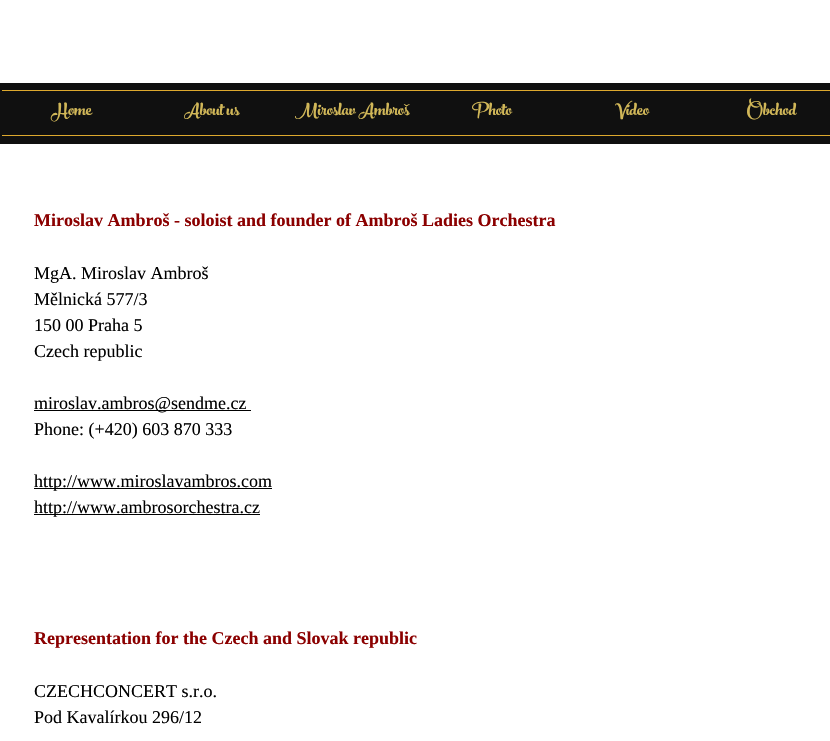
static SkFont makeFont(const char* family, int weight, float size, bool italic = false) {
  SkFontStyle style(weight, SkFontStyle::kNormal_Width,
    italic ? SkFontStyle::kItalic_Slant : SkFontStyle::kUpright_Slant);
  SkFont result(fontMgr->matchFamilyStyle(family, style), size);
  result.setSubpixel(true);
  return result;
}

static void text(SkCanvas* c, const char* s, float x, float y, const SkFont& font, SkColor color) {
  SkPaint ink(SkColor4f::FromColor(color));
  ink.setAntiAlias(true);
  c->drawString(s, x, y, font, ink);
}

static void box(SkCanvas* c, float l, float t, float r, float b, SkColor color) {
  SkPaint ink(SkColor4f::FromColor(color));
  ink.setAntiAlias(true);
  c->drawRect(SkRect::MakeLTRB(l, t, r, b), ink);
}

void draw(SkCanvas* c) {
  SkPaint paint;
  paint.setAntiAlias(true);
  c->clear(0xffffffff);
  box(c, 0, 83, 830, 144, 0xff101010);
  box(c, 2, 90, 830, 91, 0xffdda92e);
  box(c, 2, 135, 830, 136, 0xffdda92e);
  SkFont face1 = makeFont("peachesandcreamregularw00", 400, 26);
  text(c, "Home", 52, 115, face1, 0xffd1b758);
  text(c, "About us", 184, 115, face1, 0xffd1b758);
  text(c, "Miroslav Ambroš", 295, 115, face1, 0xffd1b758);
  text(c, "Photo", 472, 115, face1, 0xffd1b758);
  text(c, "Video", 615, 115, face1, 0xffd1b758);
  text(c, "Obchod", 747, 115, face1, 0xffd1b758);
  SkFont face2 = makeFont("Liberation Serif", 700, 18);
  text(c, "Miroslav Ambroš - soloist and founder of Ambroš Ladies Orchestra", 34, 226, face2, 0xff8b0000);
  SkFont face3 = makeFont("Liberation Serif", 400, 18);
  text(c, "MgA. Miroslav Ambroš", 34, 279, face3, 0xff000000);
  text(c, "Mělnická 577/3", 34, 305, face3, 0xff000000);
  text(c, "150 00 Praha 5", 34, 331, face3, 0xff000000);
  text(c, "Czech republic", 34, 357, face3, 0xff000000);
  box(c, 34, 410, 251, 411, 0xff000000);
  text(c, "miroslav.ambros@sendme.cz", 34, 409, face3, 0xff000000);
  text(c, "Phone: (+420) 603 870 333", 34, 435, face3, 0xff000000);
  box(c, 34, 488, 272, 489, 0xff000000);
  text(c, "http://www.miroslavambros.com", 34, 487, face3, 0xff000000);
  box(c, 34, 514, 260, 515, 0xff000000);
  text(c, "http://www.ambrosorchestra.cz", 34, 513, face3, 0xff000000);
  text(c, "Representation for the Czech and Slovak republic", 34, 644, face2, 0xff8b0000);
  text(c, "CZECHCONCERT s.r.o.", 34, 697, face3, 0xff000000);
  text(c, "Pod Kavalírkou 296/12", 34, 723, face3, 0xff000000);
}
